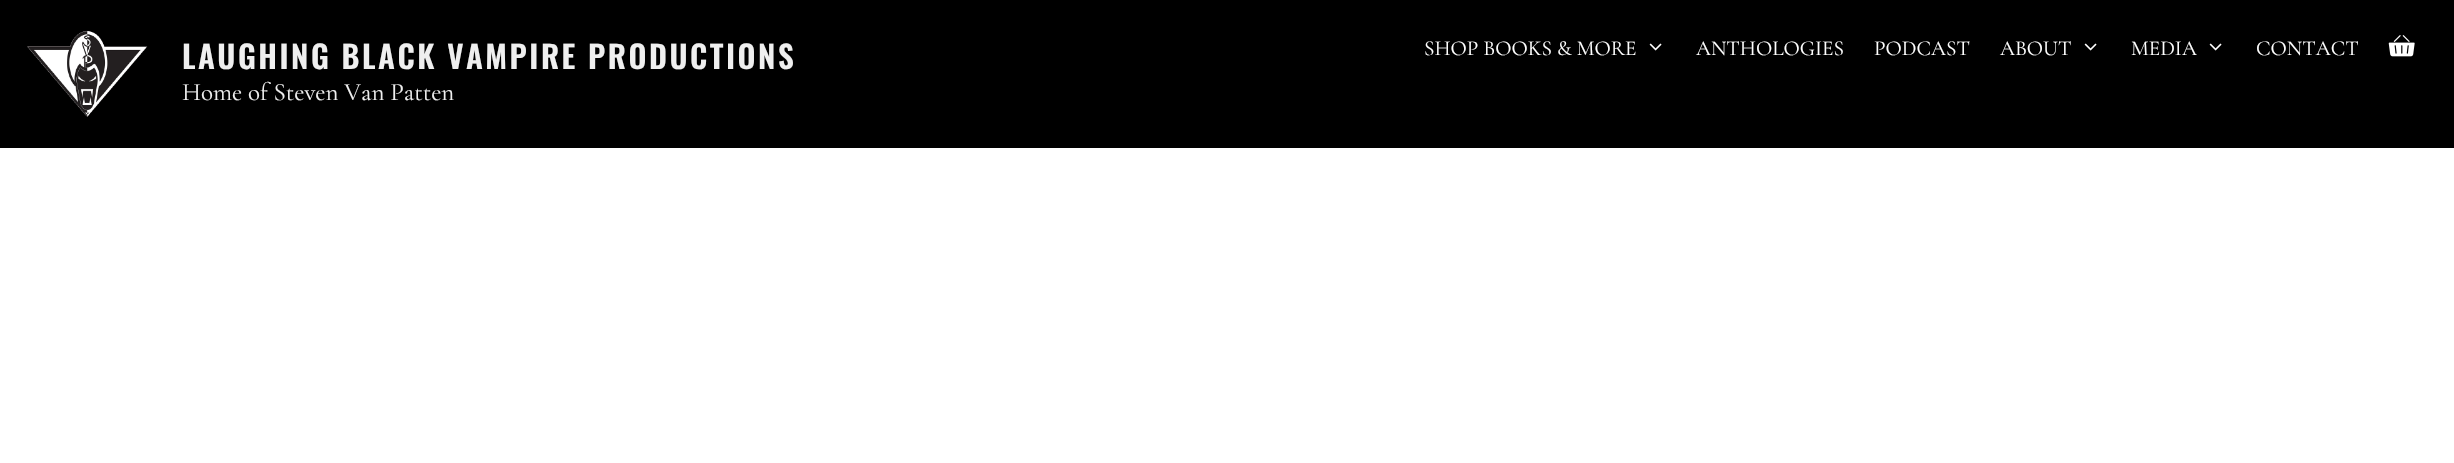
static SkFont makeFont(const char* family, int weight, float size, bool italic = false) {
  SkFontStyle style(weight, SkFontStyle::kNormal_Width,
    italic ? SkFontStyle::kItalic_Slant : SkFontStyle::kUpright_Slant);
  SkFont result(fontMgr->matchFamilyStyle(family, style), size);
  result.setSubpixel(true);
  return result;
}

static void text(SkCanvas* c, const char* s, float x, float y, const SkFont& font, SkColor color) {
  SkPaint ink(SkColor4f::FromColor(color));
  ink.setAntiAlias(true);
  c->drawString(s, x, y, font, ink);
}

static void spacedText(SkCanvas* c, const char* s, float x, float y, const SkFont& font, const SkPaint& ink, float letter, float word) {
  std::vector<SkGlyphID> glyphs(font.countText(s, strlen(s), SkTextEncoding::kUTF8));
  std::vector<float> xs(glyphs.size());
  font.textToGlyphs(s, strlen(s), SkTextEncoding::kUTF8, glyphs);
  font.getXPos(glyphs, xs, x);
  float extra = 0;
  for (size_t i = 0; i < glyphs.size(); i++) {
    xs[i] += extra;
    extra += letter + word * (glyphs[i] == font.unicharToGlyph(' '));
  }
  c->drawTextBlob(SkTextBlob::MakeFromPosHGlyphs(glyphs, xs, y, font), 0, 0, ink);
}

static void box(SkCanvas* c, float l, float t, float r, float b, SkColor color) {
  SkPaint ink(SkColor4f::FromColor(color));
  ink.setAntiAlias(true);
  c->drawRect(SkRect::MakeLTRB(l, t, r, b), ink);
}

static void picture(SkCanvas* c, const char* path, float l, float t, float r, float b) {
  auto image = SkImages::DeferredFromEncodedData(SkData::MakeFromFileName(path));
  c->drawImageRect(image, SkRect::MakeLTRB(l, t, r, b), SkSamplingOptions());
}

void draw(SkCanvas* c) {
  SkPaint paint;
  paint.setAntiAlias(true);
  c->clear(0xffffffff);
  box(c, 0, 0, 2454, 148, 0xff000000);
  picture(c, "img_01.png", 27, 30, 148, 117);
  SkFont face1 = makeFont("Oswald", 600, 31.25f);
  paint.setColor(0xffefefef);
  spacedText(c, "LAUGHING BLACK VAMPIRE PRODUCTIONS", 182, 69, face1, paint, 2.5f, 0);
  SkFont face2 = makeFont("Cormorant Garamond", 400, 25);
  text(c, "Home of Steven Van Patten", 182, 100, face2, 0xffefefef);
  SkFont face3 = makeFont("Cormorant Garamond", 400, 21.25f);
  text(c, "SHOP BOOKS & MORE", 1424, 55, face3, 0xffffffff);
  picture(c, "img_02.png", 1649, 43, 1662, 51);
  text(c, "ANTHOLOGIES", 1696, 55, face3, 0xffffffff);
  text(c, "PODCAST", 1874, 55, face3, 0xffffffff);
  text(c, "ABOUT", 2000, 55, face3, 0xffffffff);
  picture(c, "img_02.png", 2084, 43, 2097, 51);
  text(c, "MEDIA", 2131, 55, face3, 0xffffffff);
  picture(c, "img_02.png", 2209, 43, 2222, 51);
  text(c, "CONTACT", 2256, 55, face3, 0xffffffff);
  picture(c, "img_03.png", 2388, 35, 2415, 57);
}
